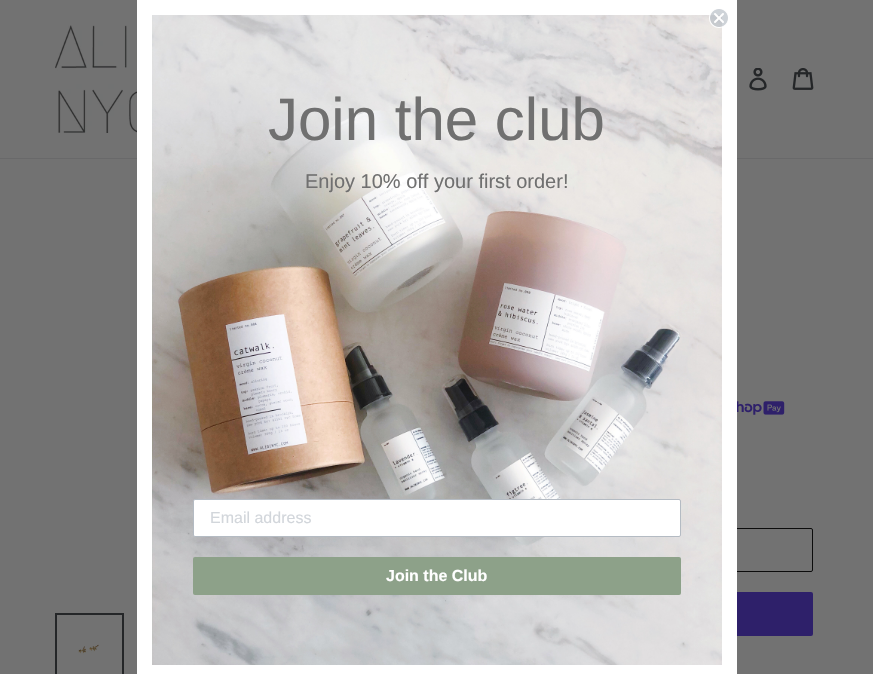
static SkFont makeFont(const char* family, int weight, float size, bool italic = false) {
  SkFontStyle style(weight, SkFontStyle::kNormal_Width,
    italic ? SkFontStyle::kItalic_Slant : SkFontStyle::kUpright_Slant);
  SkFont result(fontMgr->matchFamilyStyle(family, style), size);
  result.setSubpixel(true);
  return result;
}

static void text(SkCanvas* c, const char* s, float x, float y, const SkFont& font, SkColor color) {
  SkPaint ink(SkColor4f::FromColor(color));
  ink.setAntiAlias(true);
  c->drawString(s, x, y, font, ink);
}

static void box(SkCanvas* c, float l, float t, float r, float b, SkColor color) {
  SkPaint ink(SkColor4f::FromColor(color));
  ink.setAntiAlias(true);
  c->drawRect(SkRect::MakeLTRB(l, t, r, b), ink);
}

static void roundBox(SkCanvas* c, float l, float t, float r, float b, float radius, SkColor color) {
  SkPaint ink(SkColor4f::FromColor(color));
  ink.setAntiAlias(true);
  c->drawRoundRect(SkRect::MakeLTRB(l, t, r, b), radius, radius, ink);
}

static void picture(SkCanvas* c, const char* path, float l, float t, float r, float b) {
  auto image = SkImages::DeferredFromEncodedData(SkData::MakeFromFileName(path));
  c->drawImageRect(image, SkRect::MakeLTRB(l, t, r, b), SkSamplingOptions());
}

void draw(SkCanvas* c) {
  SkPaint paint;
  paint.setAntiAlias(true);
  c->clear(0xff727272);
  box(c, 0, 158, 873, 159, 0xff69696a);
  picture(c, "img_01.png", 55, 25, 137, 133);
  picture(c, "img_02.png", 749, 68, 767, 91);
  picture(c, "img_03.png", 792, 68, 814, 90);
  paint.setStyle(SkPaint::kStroke_Style);
  paint.setStrokeWidth(1);
  paint.setColor(0xff0c0c0c);
  c->drawRoundRect(SkRect::MakeLTRB(457.5f, 528.5f, 812.5f, 571.5f), 1.5f, 1.5f, paint);
  roundBox(c, 457, 592, 813, 636, 2, 0xff2e206a);
  picture(c, "img_05.png", 152, 15, 722, 665);
  paint.setStrokeWidth(15);
  paint.setColor(0xffffffff);
  c->drawRect(SkRect::MakeLTRB(144.5f, 7.5f, 729.5f, 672.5f), paint);
  picture(c, "img_04.png", 709, 9, 728, 28);
  SkFont face1 = makeFont("Liberation Sans", 400, 60);
  text(c, "Join the club", 268, 140, face1, 0xff707070);
  SkFont face2 = makeFont("Liberation Sans", 400, 20);
  text(c, "Enjoy 10% off your first order!", 305, 188, face2, 0xff707070);
  paint.setStyle(SkPaint::kFill_Style);
  c->drawRoundRect(SkRect::MakeLTRB(193.5f, 499.5f, 680.5f, 536.5f), 1.5f, 1.5f, paint);
  paint.setStyle(SkPaint::kStroke_Style);
  paint.setStrokeWidth(1);
  paint.setColor(0xffb4bbc3);
  c->drawRoundRect(SkRect::MakeLTRB(193.5f, 499.5f, 680.5f, 536.5f), 1.5f, 1.5f, paint);
  SkFont face3 = makeFont("Liberation Sans", 400, 16);
  text(c, "Email address", 210, 523, face3, 0xffd2d6db);
  roundBox(c, 193, 557, 681, 595, 2, 0xff8da189);
  SkFont face4 = makeFont("Liberation Sans", 700, 16);
  text(c, "Join the Club", 386, 581, face4, 0xffffffff);
  picture(c, "img_06.png", 737, 401, 785, 415);
  paint.setStrokeWidth(2);
  paint.setColor(0xff242628);
  c->drawRect(SkRect::MakeLTRB(56, 614, 123, 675), paint);
  picture(c, "img_07.png", 78, 644, 99, 655);
}
